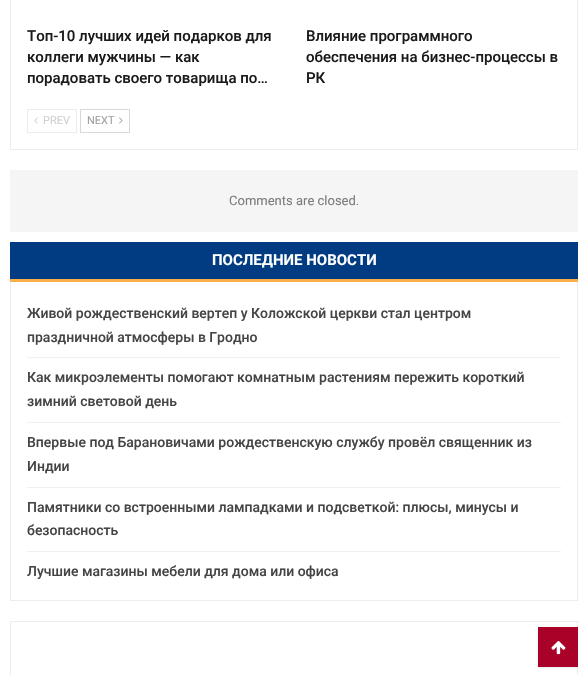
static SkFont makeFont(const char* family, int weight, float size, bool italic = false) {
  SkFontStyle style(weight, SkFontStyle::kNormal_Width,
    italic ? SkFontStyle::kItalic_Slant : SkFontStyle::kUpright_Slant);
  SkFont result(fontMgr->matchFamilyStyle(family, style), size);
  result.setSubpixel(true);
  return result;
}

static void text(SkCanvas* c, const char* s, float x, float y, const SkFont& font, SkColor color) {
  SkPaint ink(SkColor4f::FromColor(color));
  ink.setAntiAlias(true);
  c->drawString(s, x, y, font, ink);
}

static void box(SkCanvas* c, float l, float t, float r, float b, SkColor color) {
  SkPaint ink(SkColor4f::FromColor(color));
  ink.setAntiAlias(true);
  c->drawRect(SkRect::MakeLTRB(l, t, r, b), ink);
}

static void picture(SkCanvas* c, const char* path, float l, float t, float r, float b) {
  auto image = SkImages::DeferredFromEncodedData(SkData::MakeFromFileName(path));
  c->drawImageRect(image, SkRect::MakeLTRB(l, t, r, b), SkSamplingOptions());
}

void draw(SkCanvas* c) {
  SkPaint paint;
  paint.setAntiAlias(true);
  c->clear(0xffffffff);
  paint.setStyle(SkPaint::kStroke_Style);
  paint.setStrokeWidth(1);
  paint.setColor(0xffededed);
  c->drawRect(SkRect::MakeLTRB(10.5f, -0.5f, 577.5f, 149.5f), paint);
  SkFont face1 = makeFont("Roboto", 500, 15);
  text(c, "Топ-10 лучших идей подарков для", 27, 41, face1, 0xff1a1a1a);
  text(c, "коллеги мужчины — как", 27, 62, face1, 0xff1a1a1a);
  text(c, "порадовать своего товарища по…", 27, 83, face1, 0xff1a1a1a);
  text(c, "Влияние программного", 306, 41, face1, 0xff1a1a1a);
  text(c, "обеспечения на бизнес-процессы в", 306, 62, face1, 0xff1a1a1a);
  text(c, "РК", 306, 83, face1, 0xff1a1a1a);
  paint.setColor(0xffececec);
  c->drawRect(SkRect::MakeLTRB(27.5f, 109.5f, 76.5f, 132.5f), paint);
  picture(c, "img_01.png", 34, 117, 38, 124);
  SkFont face2 = makeFont("Roboto", 400, 11);
  text(c, "PREV", 43, 124, face2, 0xffcfcfcf);
  paint.setColor(0xffd8d8d8);
  c->drawRect(SkRect::MakeLTRB(80.5f, 109.5f, 129.5f, 132.5f), paint);
  text(c, "NEXT", 87, 124, face2, 0xff9e9e9e);
  picture(c, "img_02.png", 119, 117, 123, 124);
  box(c, 10, 170, 578, 232, 0xfff5f5f5);
  SkFont face3 = makeFont("Roboto", 400, 13);
  text(c, "Comments are closed.", 229, 205, face3, 0xff7b7b7b);
  paint.setColor(0xffededed);
  c->drawRect(SkRect::MakeLTRB(10.5f, 242.5f, 577.5f, 600.5f), paint);
  box(c, 10, 242, 578, 279, 0xff013b82);
  SkFont face4 = makeFont("Roboto", 700, 15);
  text(c, "ПОСЛЕДНИЕ НОВОСТИ", 212, 265, face4, 0xffffffff);
  box(c, 10, 279, 578, 282, 0xfff6af49);
  box(c, 27, 357, 561, 358, 0xfff0f0f0);
  SkFont face5 = makeFont("Roboto", 500, 14);
  text(c, "Живой рождественский вертеп у Коложской церкви стал центром", 27, 318, face5, 0xff444444);
  text(c, "праздничной атмосферы в Гродно", 27, 342, face5, 0xff444444);
  box(c, 27, 422, 561, 423, 0xfff0f0f0);
  text(c, "Как микроэлементы помогают комнатным растениям пережить короткий", 27, 382, face5, 0xff444444);
  text(c, "зимний световой день", 27, 406, face5, 0xff444444);
  box(c, 27, 487, 561, 488, 0xfff0f0f0);
  text(c, "Впервые под Барановичами рождественскую службу провёл священник из", 27, 447, face5, 0xff444444);
  text(c, "Индии", 27, 471, face5, 0xff444444);
  box(c, 27, 551, 561, 552, 0xfff0f0f0);
  text(c, "Памятники со встроенными лампадками и подсветкой: плюсы, минусы и", 27, 512, face5, 0xff444444);
  text(c, "безопасность", 27, 535, face5, 0xff444444);
  text(c, "Лучшие магазины мебели для дома или офиса", 27, 576, face5, 0xff444444);
  c->drawRect(SkRect::MakeLTRB(10.5f, 621.5f, 577.5f, 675.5f), paint);
  paint.setStyle(SkPaint::kFill_Style);
  paint.setColor(0x17000000);
  paint.setMaskFilter(SkMaskFilter::MakeBlur(kNormal_SkBlurStyle, 1));
  c->drawRect(SkRect::MakeLTRB(538, 628, 578, 668), paint);
  paint.setMaskFilter(nullptr);
  box(c, 538, 627, 578, 667, 0xffaa0129);
  picture(c, "img_03.png", 551, 641, 566, 655);
}
